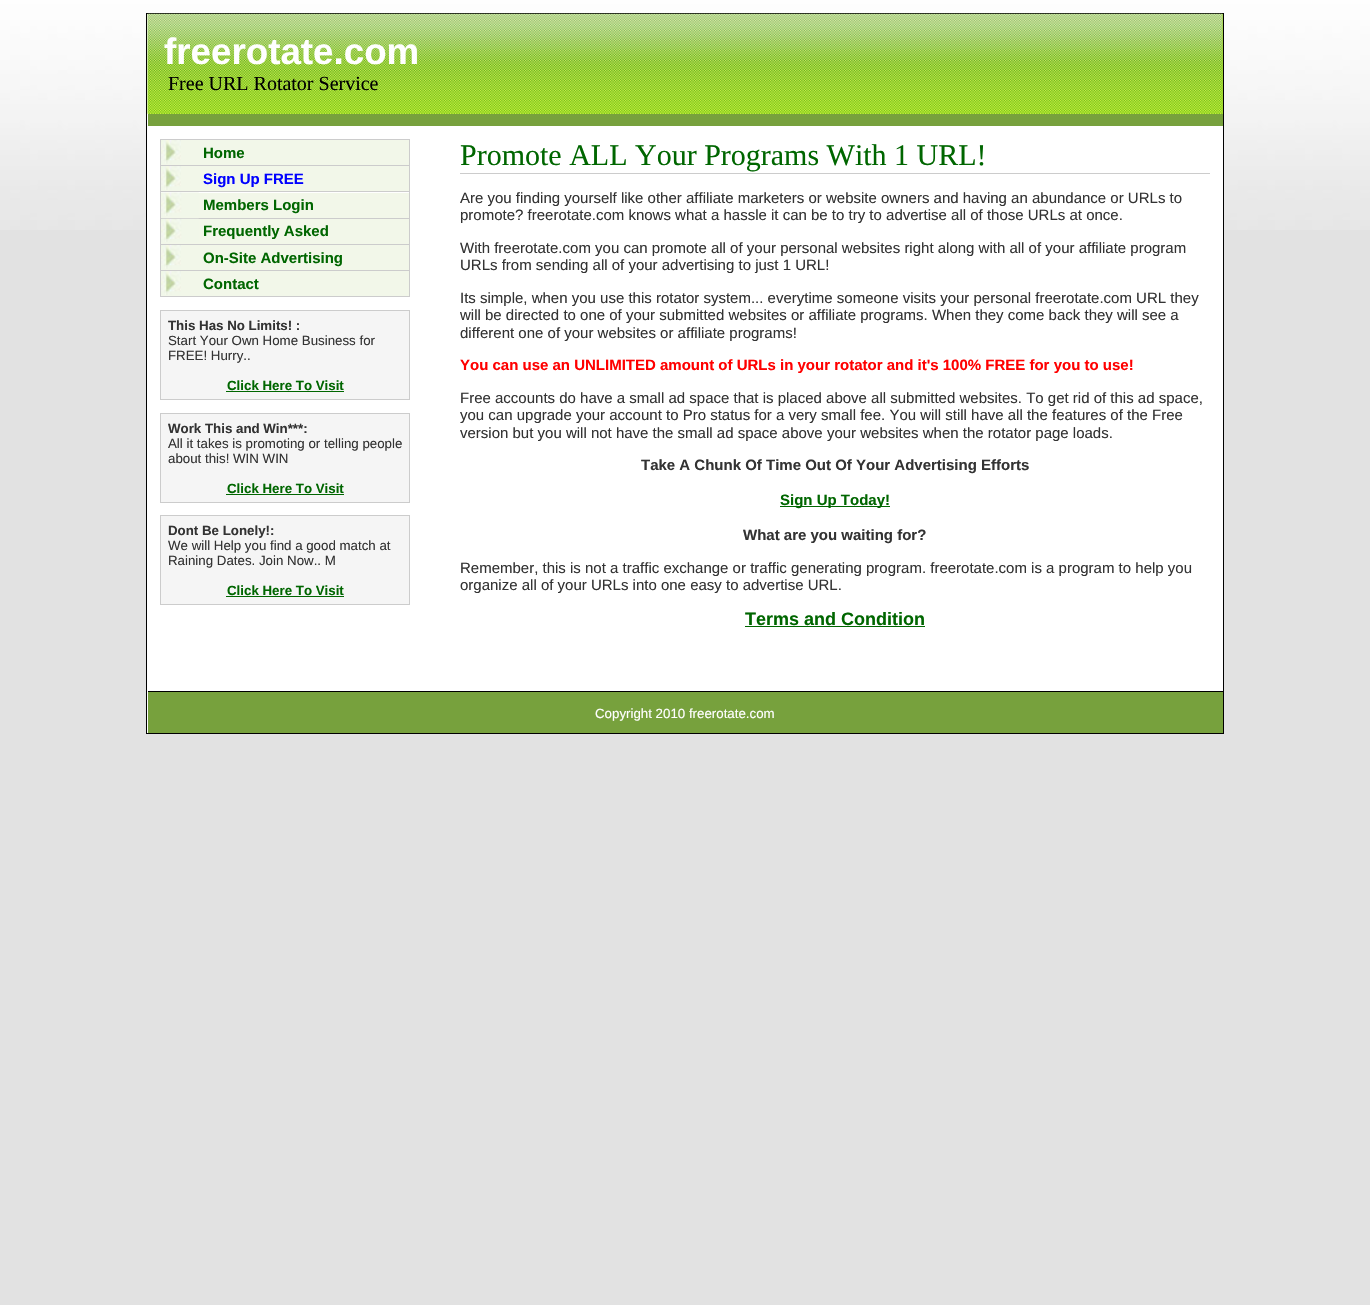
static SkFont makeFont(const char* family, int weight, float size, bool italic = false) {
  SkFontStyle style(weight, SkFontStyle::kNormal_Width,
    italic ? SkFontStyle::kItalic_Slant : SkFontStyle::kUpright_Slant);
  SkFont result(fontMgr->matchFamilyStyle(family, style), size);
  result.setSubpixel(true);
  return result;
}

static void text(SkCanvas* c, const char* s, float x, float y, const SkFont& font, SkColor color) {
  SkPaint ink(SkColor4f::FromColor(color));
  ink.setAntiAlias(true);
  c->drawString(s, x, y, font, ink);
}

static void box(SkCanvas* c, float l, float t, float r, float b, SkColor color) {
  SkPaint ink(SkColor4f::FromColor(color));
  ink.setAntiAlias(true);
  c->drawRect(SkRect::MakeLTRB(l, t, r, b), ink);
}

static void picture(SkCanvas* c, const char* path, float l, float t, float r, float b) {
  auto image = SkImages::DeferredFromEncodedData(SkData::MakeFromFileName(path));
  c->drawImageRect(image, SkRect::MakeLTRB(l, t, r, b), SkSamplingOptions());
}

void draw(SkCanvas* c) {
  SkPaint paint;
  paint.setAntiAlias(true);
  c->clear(0xffe2e2e2);
  picture(c, "img_01.png", 0, 0, 1370, 230);
  box(c, 147, 20, 1223, 733, 0xffffffff);
  paint.setStyle(SkPaint::kStroke_Style);
  paint.setStrokeWidth(1);
  paint.setColor(0xff000000);
  c->drawRect(SkRect::MakeLTRB(146.5f, 13.5f, 1223.5f, 733.5f), paint);
  box(c, 148, 14, 1223, 114, 0xffa0da2b);
  picture(c, "img_02.png", 147, 13, 1223, 114);
  box(c, 148, 114, 1223, 126, 0xff77a13d);
  SkFont face1 = makeFont("Liberation Sans", 700, 36.75f);
  text(c, "freerotate.com", 164, 64, face1, 0xffffffff);
  SkFont face2 = makeFont("Liberation Serif", 400, 20);
  text(c, "Free URL Rotator Service", 168, 90, face2, 0xff000000);
  box(c, 160, 296, 410, 297, 0xffcccccc);
  box(c, 160, 139, 410, 140, 0xffcccccc);
  box(c, 409, 139, 410, 165, 0xffcccccc);
  box(c, 160, 139, 161, 165, 0xffcccccc);
  box(c, 161, 140, 409, 165, 0xfff2f7e9);
  picture(c, "img_03.png", 161, 140, 181, 164);
  SkFont face3 = makeFont("Liberation Sans", 700, 15);
  text(c, "Home", 203, 158, face3, 0xff006600);
  box(c, 160, 165, 410, 166, 0xffcccccc);
  box(c, 409, 165, 410, 191, 0xffcccccc);
  box(c, 160, 165, 161, 191, 0xffcccccc);
  box(c, 161, 166, 409, 191, 0xfff2f7e9);
  picture(c, "img_04.png", 161, 166, 181, 190);
  text(c, "Sign Up FREE", 203, 184, face3, 0xff0000ff);
  box(c, 160, 191, 410, 192, 0xffcccccc);
  box(c, 409, 191, 410, 218, 0xffcccccc);
  box(c, 160, 191, 161, 218, 0xffcccccc);
  box(c, 161, 193, 409, 218, 0xfff2f7e9);
  picture(c, "img_05.png", 161, 192, 199, 216);
  text(c, "Members Login", 203, 210, face3, 0xff006600);
  box(c, 160, 218, 410, 219, 0xffcccccc);
  box(c, 409, 218, 410, 244, 0xffcccccc);
  box(c, 160, 218, 161, 244, 0xffcccccc);
  box(c, 161, 219, 409, 244, 0xfff2f7e9);
  picture(c, "img_06.png", 161, 218, 199, 242);
  text(c, "Frequently Asked", 203, 236, face3, 0xff006600);
  box(c, 160, 244, 410, 245, 0xffcccccc);
  box(c, 409, 244, 410, 270, 0xffcccccc);
  box(c, 160, 244, 161, 270, 0xffcccccc);
  box(c, 161, 245, 409, 270, 0xfff2f7e9);
  picture(c, "img_03.png", 161, 245, 181, 269);
  text(c, "On-Site Advertising", 203, 263, face3, 0xff006600);
  box(c, 160, 270, 410, 271, 0xffcccccc);
  box(c, 409, 270, 410, 296, 0xffcccccc);
  box(c, 160, 270, 161, 296, 0xffcccccc);
  box(c, 161, 271, 409, 296, 0xfff2f7e9);
  picture(c, "img_04.png", 161, 271, 181, 295);
  text(c, "Contact", 203, 289, face3, 0xff006600);
  paint.setStyle(SkPaint::kFill_Style);
  paint.setColor(0xfff5f5f5);
  c->drawRect(SkRect::MakeLTRB(160.5f, 310.5f, 409.5f, 399.5f), paint);
  paint.setStyle(SkPaint::kStroke_Style);
  paint.setColor(0xffcccccc);
  c->drawRect(SkRect::MakeLTRB(160.5f, 310.5f, 409.5f, 399.5f), paint);
  SkFont face4 = makeFont("Liberation Sans", 700, 13.3f);
  text(c, "This Has No Limits! :", 168, 330, face4, 0xff333333);
  SkFont face5 = makeFont("Liberation Sans", 400, 13.3f);
  text(c, "Start Your Own Home Business for", 168, 345, face5, 0xff333333);
  text(c, "FREE! Hurry..", 168, 360, face5, 0xff333333);
  text(c, "Click Here To Visit", 227, 390, face4, 0xff006600);
  box(c, 226, 391, 344, 392, 0xff006600);
  paint.setStyle(SkPaint::kFill_Style);
  paint.setColor(0xfff5f5f5);
  c->drawRect(SkRect::MakeLTRB(160.5f, 413.5f, 409.5f, 502.5f), paint);
  paint.setStyle(SkPaint::kStroke_Style);
  paint.setColor(0xffcccccc);
  c->drawRect(SkRect::MakeLTRB(160.5f, 413.5f, 409.5f, 502.5f), paint);
  text(c, "Work This and Win***:", 168, 433, face4, 0xff333333);
  text(c, "All it takes is promoting or telling people", 168, 448, face5, 0xff333333);
  text(c, "about this! WIN WIN", 168, 463, face5, 0xff333333);
  text(c, "Click Here To Visit", 227, 493, face4, 0xff006600);
  box(c, 226, 494, 344, 495, 0xff006600);
  paint.setStyle(SkPaint::kFill_Style);
  paint.setColor(0xfff5f5f5);
  c->drawRect(SkRect::MakeLTRB(160.5f, 515.5f, 409.5f, 604.5f), paint);
  paint.setStyle(SkPaint::kStroke_Style);
  paint.setColor(0xffcccccc);
  c->drawRect(SkRect::MakeLTRB(160.5f, 515.5f, 409.5f, 604.5f), paint);
  text(c, "Dont Be Lonely!:", 168, 535, face4, 0xff333333);
  text(c, "We will Help you find a good match at", 168, 550, face5, 0xff333333);
  text(c, "Raining Dates. Join Now.. M", 168, 565, face5, 0xff333333);
  text(c, "Click Here To Visit", 227, 595, face4, 0xff006600);
  box(c, 226, 596, 344, 597, 0xff006600);
  box(c, 460, 173, 1210, 174, 0xffcccccc);
  SkFont face6 = makeFont("Liberation Serif", 400, 30);
  text(c, "Promote ALL Your Programs With 1 URL!", 460, 165, face6, 0xff006600);
  SkFont face7 = makeFont("Liberation Sans", 400, 15);
  text(c, "Are you finding yourself like other affiliate marketers or website owners and having an abundance or URLs to", 460, 203, face7, 0xff333333);
  text(c, "promote? freerotate.com knows what a hassle it can be to try to advertise all of those URLs at once.", 460, 220, face7, 0xff333333);
  text(c, "With freerotate.com you can promote all of your personal websites right along with all of your affiliate program", 460, 253, face7, 0xff333333);
  text(c, "URLs from sending all of your advertising to just 1 URL!", 460, 270, face7, 0xff333333);
  text(c, "Its simple, when you use this rotator system... everytime someone visits your personal freerotate.com URL they", 460, 303, face7, 0xff333333);
  text(c, "will be directed to one of your submitted websites or affiliate programs. When they come back they will see a", 460, 320, face7, 0xff333333);
  text(c, "different one of your websites or affiliate programs!", 460, 338, face7, 0xff333333);
  text(c, "You can use an UNLIMITED amount of URLs in your rotator and it's 100% FREE for you to use!", 460, 370, face3, 0xffff0000);
  text(c, "Free accounts do have a small ad space that is placed above all submitted websites. To get rid of this ad space,", 460, 403, face7, 0xff333333);
  text(c, "you can upgrade your account to Pro status for a very small fee. You will still have all the features of the Free", 460, 420, face7, 0xff333333);
  text(c, "version but you will not have the small ad space above your websites when the rotator page loads.", 460, 438, face7, 0xff333333);
  text(c, "Take A Chunk Of Time Out Of Your Advertising Efforts", 641, 470, face3, 0xff333333);
  box(c, 780, 506, 890, 507, 0xff006600);
  text(c, "Sign Up Today!", 780, 505, face3, 0xff006600);
  text(c, "What are you waiting for?", 743, 540, face3, 0xff333333);
  text(c, "Remember, this is not a traffic exchange or traffic generating program. freerotate.com is a program to help you", 460, 573, face7, 0xff333333);
  text(c, "organize all of your URLs into one easy to advertise URL.", 460, 590, face7, 0xff333333);
  SkFont face8 = makeFont("Liberation Sans", 700, 18);
  text(c, "Terms and Condition", 745, 625, face8, 0xff006600);
  box(c, 745, 626, 925, 627, 0xff006600);
  box(c, 148, 692, 1223, 733, 0xff77a13d);
  box(c, 148, 691, 1223, 692, 0xff000000);
  text(c, "Copyright 2010 freerotate.com", 595, 718, face5, 0xffffffff);
}
